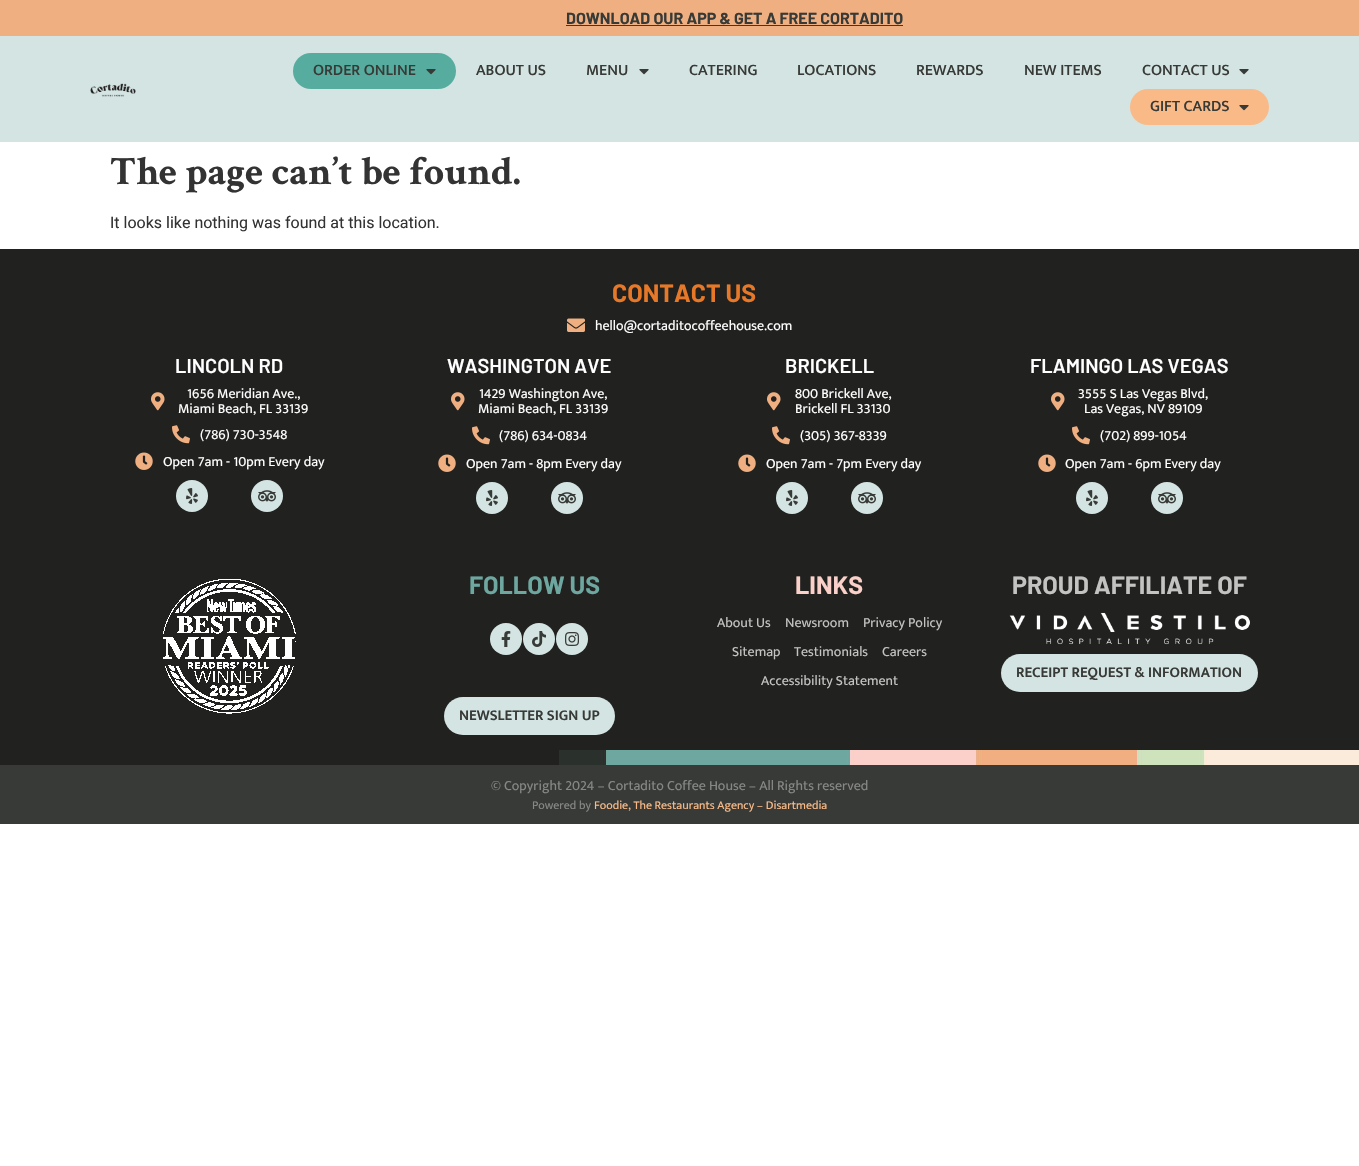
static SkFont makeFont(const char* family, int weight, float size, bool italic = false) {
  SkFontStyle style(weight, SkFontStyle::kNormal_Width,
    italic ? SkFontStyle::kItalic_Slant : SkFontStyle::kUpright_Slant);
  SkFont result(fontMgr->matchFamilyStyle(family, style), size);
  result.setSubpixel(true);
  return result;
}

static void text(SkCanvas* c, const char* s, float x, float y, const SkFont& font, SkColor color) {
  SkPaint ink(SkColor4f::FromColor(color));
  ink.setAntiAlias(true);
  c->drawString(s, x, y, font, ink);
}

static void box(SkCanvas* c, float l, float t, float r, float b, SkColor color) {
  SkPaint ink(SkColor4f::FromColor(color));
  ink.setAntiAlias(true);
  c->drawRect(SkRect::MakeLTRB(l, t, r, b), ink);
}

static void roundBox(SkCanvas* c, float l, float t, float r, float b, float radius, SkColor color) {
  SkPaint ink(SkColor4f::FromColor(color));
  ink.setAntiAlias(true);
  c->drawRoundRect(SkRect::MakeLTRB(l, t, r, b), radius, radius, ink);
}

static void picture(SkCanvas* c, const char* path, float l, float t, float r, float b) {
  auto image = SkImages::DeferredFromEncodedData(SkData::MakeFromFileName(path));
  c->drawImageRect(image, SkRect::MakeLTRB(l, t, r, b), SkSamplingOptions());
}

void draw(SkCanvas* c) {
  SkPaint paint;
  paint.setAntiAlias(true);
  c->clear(0xffffffff);
  box(c, 0, 0, 1359, 36, 0xfff0af80);
  SkFont face1 = makeFont("Barlow", 700, 16);
  text(c, "DOWNLOAD OUR APP & GET A FREE CORTADITO", 566, 24, face1, 0xff373a36);
  box(c, 566, 25, 903, 26, 0xff373a36);
  box(c, 0, 36, 1359, 142, 0xffd3e4e2);
  picture(c, "img_01.png", 90, 83, 136, 97);
  roundBox(c, 293, 53, 456, 89, 18, 0xff56ac9e);
  SkFont face2 = makeFont("Mukta", 500, 16);
  text(c, "ORDER ONLINE", 313, 75, face2, 0xff373a36);
  picture(c, "img_02.png", 426, 69, 436, 75);
  text(c, "ABOUT US", 476, 75, face2, 0xff373a36);
  text(c, "MENU", 586, 75, face2, 0xff373a36);
  picture(c, "img_03.png", 639, 69, 649, 75);
  text(c, "CATERING", 689, 75, face2, 0xff373a36);
  text(c, "LOCATIONS", 797, 75, face2, 0xff373a36);
  text(c, "REWARDS", 916, 75, face2, 0xff373a36);
  text(c, "NEW ITEMS", 1024, 75, face2, 0xff373a36);
  text(c, "CONTACT US", 1142, 75, face2, 0xff373a36);
  picture(c, "img_03.png", 1239, 69, 1249, 75);
  roundBox(c, 1130, 89, 1269, 125, 18, 0xfffaba88);
  text(c, "GIFT CARDS", 1150, 111, face2, 0xff373a36);
  picture(c, "img_04.png", 1239, 105, 1249, 111);
  SkFont face3 = makeFont("Crimson Text", 700, 40);
  text(c, "The page can’t be found.", 110, 184, face3, 0xff333333);
  SkFont face4 = makeFont("Roboto", 400, 16);
  text(c, "It looks like nothing was found at this location.", 110, 228, face4, 0xff333333);
  box(c, 0, 249, 1359, 765, 0xff212220);
  SkFont face5 = makeFont("Barlow", 700, 25);
  text(c, "CONTACT US", 612, 302, face5, 0xffe67828);
  picture(c, "img_05.png", 567, 318, 585, 332);
  SkFont face6 = makeFont("Mukta", 400, 14);
  text(c, "hello@cortaditocoffeehouse.com", 595, 330, face6, 0xffffffff);
  SkFont face7 = makeFont("Barlow", 600, 20);
  text(c, "LINCOLN RD", 175, 373, face7, 0xffffffff);
  picture(c, "img_06.png", 151, 392, 165, 411);
  text(c, "1656 Meridian Ave.,", 187, 398, face6, 0xffffffff);
  text(c, "Miami Beach, FL 33139", 178, 413, face6, 0xffffffff);
  picture(c, "img_07.png", 172, 425, 190, 444);
  text(c, "(786) 730-3548", 200, 439, face6, 0xffffffff);
  picture(c, "img_08.png", 135, 452, 153, 470);
  text(c, "Open 7am - 10pm Every day", 163, 466, face6, 0xffffffff);
  paint.setColor(0xffd3e4e2);
  c->drawCircle(192, 496, 16, paint);
  picture(c, "img_09.png", 186, 488, 198, 504);
  c->drawCircle(267, 496, 16, paint);
  picture(c, "img_10.png", 258, 490, 276, 502);
  text(c, "WASHINGTON AVE", 447, 373, face7, 0xffffffff);
  picture(c, "img_06.png", 451, 392, 465, 411);
  text(c, "1429 Washington Ave,", 479, 398, face6, 0xffffffff);
  text(c, "Miami Beach, FL 33139", 478, 413, face6, 0xffffffff);
  picture(c, "img_07.png", 472, 426, 490, 445);
  text(c, "(786) 634-0834", 499, 440, face6, 0xffffffff);
  picture(c, "img_08.png", 438, 454, 456, 472);
  text(c, "Open 7am - 8pm Every day", 466, 468, face6, 0xffffffff);
  c->drawCircle(492, 498, 16, paint);
  picture(c, "img_09.png", 486, 490, 498, 506);
  c->drawCircle(567, 498, 16, paint);
  picture(c, "img_10.png", 558, 492, 576, 504);
  text(c, "BRICKELL", 785, 373, face7, 0xffffffff);
  picture(c, "img_06.png", 767, 392, 781, 411);
  text(c, "800 Brickell Ave,", 795, 398, face6, 0xffffffff);
  text(c, "Brickell FL 33130", 795, 413, face6, 0xffffffff);
  picture(c, "img_07.png", 772, 426, 790, 445);
  text(c, "(305) 367-8339", 800, 440, face6, 0xffffffff);
  picture(c, "img_08.png", 738, 454, 756, 472);
  text(c, "Open 7am - 7pm Every day", 766, 468, face6, 0xffffffff);
  c->drawCircle(792, 498, 16, paint);
  picture(c, "img_09.png", 786, 490, 798, 506);
  c->drawCircle(867, 498, 16, paint);
  picture(c, "img_10.png", 858, 492, 876, 504);
  text(c, "FLAMINGO LAS VEGAS", 1030, 373, face7, 0xffffffff);
  picture(c, "img_06.png", 1051, 392, 1065, 411);
  text(c, "3555 S Las Vegas Blvd,", 1078, 398, face6, 0xffffffff);
  text(c, "Las Vegas, NV 89109", 1084, 413, face6, 0xffffffff);
  picture(c, "img_07.png", 1072, 426, 1090, 445);
  text(c, "(702) 899-1054", 1100, 440, face6, 0xffffffff);
  picture(c, "img_08.png", 1038, 454, 1056, 472);
  text(c, "Open 7am - 6pm Every day", 1065, 468, face6, 0xffffffff);
  c->drawCircle(1092, 498, 16, paint);
  picture(c, "img_09.png", 1086, 490, 1098, 506);
  c->drawCircle(1167, 498, 16, paint);
  picture(c, "img_10.png", 1158, 492, 1176, 504);
  picture(c, "img_11.png", 559, 750, 1359, 765);
  picture(c, "img_12.png", 163, 579, 296, 714);
  text(c, "FOLLOW US", 469, 594, face5, 0xff6da79f);
  c->drawCircle(506, 639, 16, paint);
  picture(c, "img_13.png", 501, 631, 511, 647);
  c->drawCircle(539, 639, 16, paint);
  picture(c, "img_14.png", 532, 631, 546, 647);
  c->drawCircle(572, 639, 16, paint);
  picture(c, "img_15.png", 565, 632, 579, 646);
  roundBox(c, 444, 697, 615, 735, 19, 0xffd3e4e2);
  SkFont face8 = makeFont("Mukta", 600, 15);
  text(c, "NEWSLETTER SIGN UP", 459, 720, face8, 0xff373a36);
  text(c, "LINKS", 795, 594, face5, 0xfffad0c9);
  text(c, "About Us", 717, 627, face6, 0xffc3c3c2);
  text(c, "Newsroom", 785, 627, face6, 0xffc3c3c2);
  text(c, "Privacy Policy", 863, 627, face6, 0xffc3c3c2);
  text(c, "Sitemap", 732, 656, face6, 0xffc3c3c2);
  text(c, "Testimonials", 794, 656, face6, 0xffc3c3c2);
  text(c, "Careers", 882, 656, face6, 0xffc3c3c2);
  text(c, "Accessibility Statement", 761, 685, face6, 0xffc3c3c2);
  text(c, "PROUD AFFILIATE OF", 1012, 594, face5, 0xffc3c3c2);
  picture(c, "img_16.png", 1009, 612, 1250, 645);
  roundBox(c, 1001, 654, 1258, 692, 19, 0xffd3e4e2);
  text(c, "RECEIPT REQUEST & INFORMATION", 1016, 677, face8, 0xff373a36);
  box(c, 0, 765, 1359, 824, 0xff373a36);
  text(c, "© Copyright 2024 – Cortadito Coffee House – All Rights reserved", 491, 790, face6, 0xff878886);
  SkFont face9 = makeFont("Mukta", 400, 12);
  text(c, "Powered by", 532, 809, face9, 0xff878886);
  text(c, "Foodie, The Restaurants Agency – Disartmedia", 594, 809, face9, 0xfffaba88);
}
